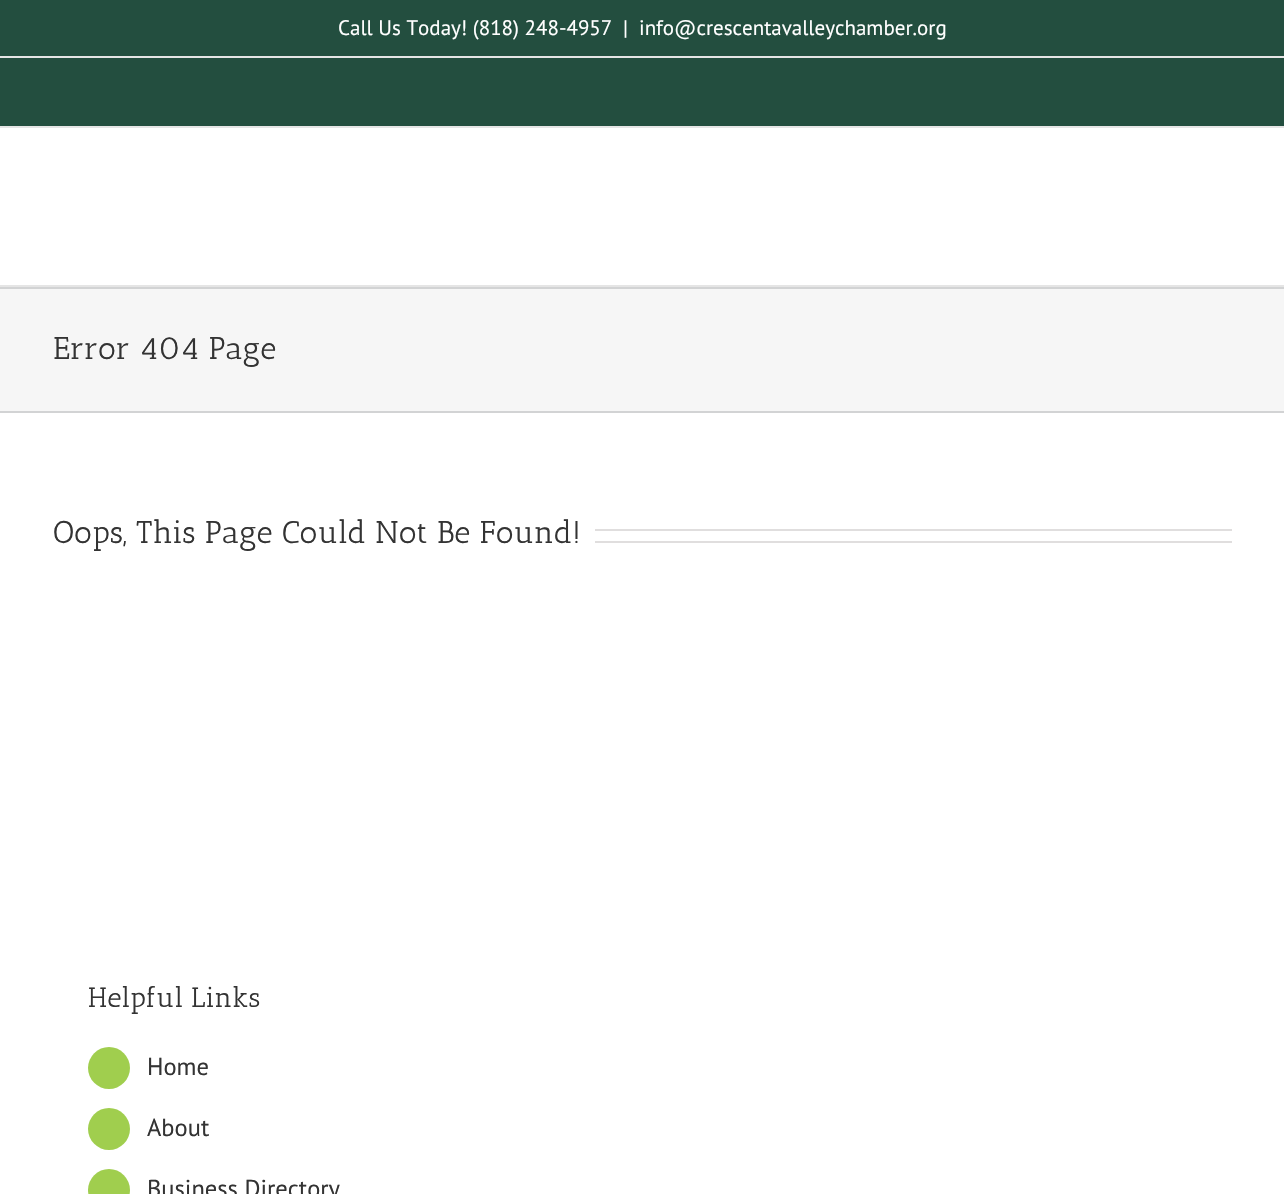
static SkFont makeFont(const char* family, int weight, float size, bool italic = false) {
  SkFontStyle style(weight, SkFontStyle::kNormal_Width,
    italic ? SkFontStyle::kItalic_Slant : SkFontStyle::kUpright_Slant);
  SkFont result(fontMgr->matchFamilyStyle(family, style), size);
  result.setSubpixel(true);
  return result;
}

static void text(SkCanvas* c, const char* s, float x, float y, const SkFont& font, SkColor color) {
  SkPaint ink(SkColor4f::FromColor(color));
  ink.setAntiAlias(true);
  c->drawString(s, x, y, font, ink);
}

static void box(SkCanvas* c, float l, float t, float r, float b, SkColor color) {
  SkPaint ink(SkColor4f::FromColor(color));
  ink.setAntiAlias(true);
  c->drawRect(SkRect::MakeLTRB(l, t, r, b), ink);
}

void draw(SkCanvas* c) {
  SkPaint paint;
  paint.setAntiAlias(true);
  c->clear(0xffffffff);
  box(c, 0, 0, 1284, 126, 0xff234e3f);
  box(c, 0, 126, 1284, 128, 0xffe5e5e5);
  box(c, 0, 56, 1284, 58, 0xffe5e5e5);
  SkFont face1 = makeFont("PT Sans", 400, 21);
  text(c, "Call Us Today! (818) 248-4957", 338, 35, face1, 0xffffffff);
  text(c, "|", 623, 35, face1, 0xffffffff);
  text(c, "info@crescentavalleychamber.org", 639, 35, face1, 0xffffffff);
  box(c, 0, 285, 1284, 287, 0xffe5e5e5);
  box(c, 0, 289, 1284, 411, 0xfff6f6f6);
  box(c, 0, 287, 1284, 289, 0xffd2d3d4);
  box(c, 0, 411, 1284, 413, 0xffd2d3d4);
  SkFont face2 = makeFont("Antic Slab", 400, 31.5f);
  text(c, "Error 404 Page", 53, 359, face2, 0xff333333);
  text(c, "Oops, This Page Could Not Be Found!", 53, 543, face2, 0xff333333);
  box(c, 595, 529, 1232, 531, 0xffe0dede);
  box(c, 595, 541, 1232, 543, 0xffe0dede);
  SkFont face3 = makeFont("Antic Slab", 400, 28);
  text(c, "Helpful Links", 88, 1007, face3, 0xff333333);
  paint.setColor(0xffa0ce4e);
  c->drawCircle(109, 1068, 21, paint);
  SkFont face4 = makeFont("PT Sans", 400, 24.5f);
  text(c, "Home", 147, 1075, face4, 0xff333333);
  c->drawCircle(109, 1129, 21, paint);
  text(c, "About", 147, 1136, face4, 0xff333333);
  c->drawCircle(109, 1190, 21, paint);
  text(c, "Business Directory", 147, 1197, face4, 0xff333333);
}
